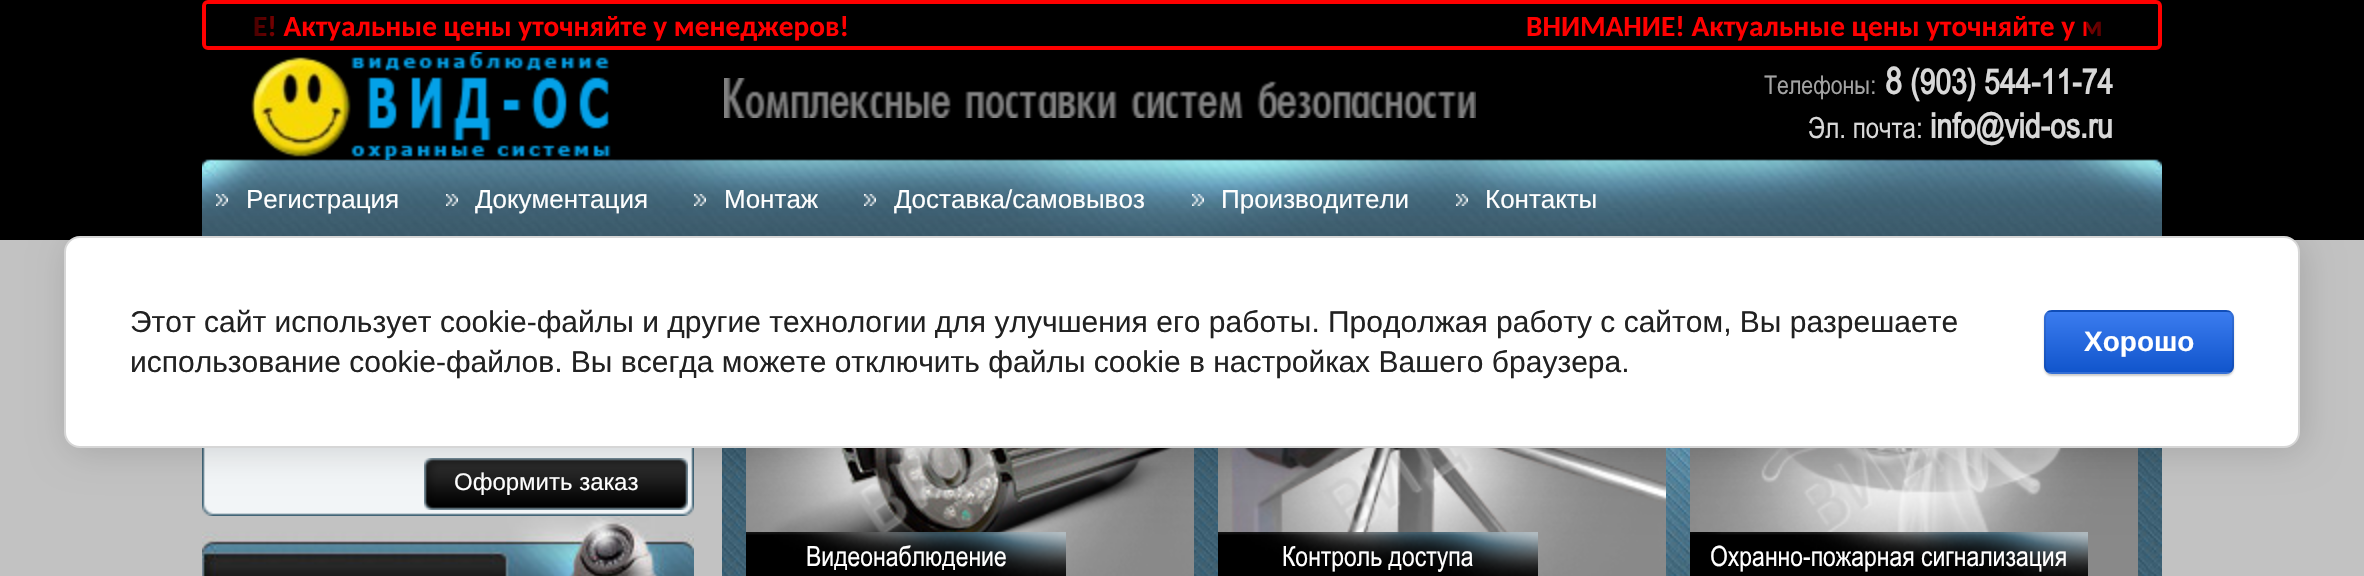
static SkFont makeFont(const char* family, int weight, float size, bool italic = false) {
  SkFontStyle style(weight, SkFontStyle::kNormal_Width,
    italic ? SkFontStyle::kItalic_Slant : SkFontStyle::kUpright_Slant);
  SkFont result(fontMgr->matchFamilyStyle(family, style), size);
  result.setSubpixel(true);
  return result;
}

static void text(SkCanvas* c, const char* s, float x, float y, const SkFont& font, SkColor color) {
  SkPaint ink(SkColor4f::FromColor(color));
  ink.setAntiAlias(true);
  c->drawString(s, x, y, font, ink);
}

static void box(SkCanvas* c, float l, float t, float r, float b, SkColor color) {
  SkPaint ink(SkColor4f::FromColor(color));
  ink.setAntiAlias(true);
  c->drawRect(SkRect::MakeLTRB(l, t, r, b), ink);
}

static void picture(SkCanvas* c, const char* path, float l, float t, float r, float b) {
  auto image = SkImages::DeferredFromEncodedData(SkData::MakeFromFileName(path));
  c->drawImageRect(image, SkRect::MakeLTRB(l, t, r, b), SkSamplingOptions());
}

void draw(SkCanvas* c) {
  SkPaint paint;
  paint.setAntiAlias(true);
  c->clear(0xffc2c2c2);
  box(c, 0, 0, 2364, 240, 0xff000000);
  picture(c, "img_01.png", 202, 159, 2162, 236);
  paint.setStyle(SkPaint::kStroke_Style);
  paint.setStrokeWidth(4);
  paint.setColor(0xffff0000);
  c->drawRoundRect(SkRect::MakeLTRB(204, 2, 2160, 48), 4, 4, paint);
  SkFont face1 = makeFont("Carlito", 700, 29.3f);
  text(c, "Е! Актуальные цены уточняйте у менеджеров!", 253, 36, face1, 0xffff0000);
  paint.setStyle(SkPaint::kFill_Style);
  paint.setColor(0x80000000);
  c->drawPath(SkPathBuilder().moveTo(208, 4).lineTo(278, 4).lineTo(278, 46).lineTo(208, 46).cubicTo(207, 46, 206, 45, 206, 44).lineTo(206, 6).cubicTo(206, 5, 207, 4, 208, 4).close().detach(), paint);
  {
    const SkColor colors[] = {0xff000000, 0x00000000};
    const float stops[] = {0, 1};
    const SkPoint ends[] = {{222, 25}, {278, 25}};
    paint.setShader(SkGradientShader::MakeLinear(ends, colors, stops, 2, SkTileMode::kClamp));
    paint.setAlpha(255);
  }
  c->drawRect(SkRect::MakeLTRB(254, 16, 274, 36), paint);
  paint.setShader(nullptr);
  paint.setColor(0xff000000);
  c->drawPath(SkPathBuilder().moveTo(208, 4).lineTo(222, 4).lineTo(222, 46).lineTo(208, 46).cubicTo(207, 46, 206, 45, 206, 44).lineTo(206, 6).cubicTo(206, 5, 207, 4, 208, 4).close().detach(), paint);
  text(c, "ВНИМАНИЕ! Актуальные цены уточняйте у м", 1526, 36, face1, 0xffff0000);
  paint.setColor(0x80000000);
  c->drawPath(SkPathBuilder().moveTo(2086, 4).lineTo(2156, 4).cubicTo(2157, 4, 2158, 5, 2158, 6).lineTo(2158, 44).cubicTo(2158, 45, 2157, 46, 2156, 46).lineTo(2086, 46).close().detach(), paint);
  {
    const SkColor colors[] = {0x00000000, 0xff000000};
    const float stops[] = {0, 1};
    const SkPoint ends[] = {{2086, 25}, {2142, 25}};
    paint.setShader(SkGradientShader::MakeLinear(ends, colors, stops, 2, SkTileMode::kClamp));
    paint.setAlpha(255);
  }
  c->drawRect(SkRect::MakeLTRB(2087, 21, 2102, 36), paint);
  paint.setShader(nullptr);
  paint.setColor(0xff000000);
  c->drawPath(SkPathBuilder().moveTo(2142, 4).lineTo(2156, 4).cubicTo(2157, 4, 2158, 5, 2158, 6).lineTo(2158, 44).cubicTo(2158, 45, 2157, 46, 2156, 46).lineTo(2142, 46).close().detach(), paint);
  picture(c, "img_02.png", 251, 52, 611, 160);
  picture(c, "img_03.png", 724, 78, 1476, 118);
  SkFont face2 = makeFont("Arial", 400, 26);
  text(c, "Телефоны:", 1764, 94, face2, 0xffa3a3a3);
  SkFont face3 = makeFont("Arial", 700, 37);
  text(c, "8", 1885, 94, face3, 0xffd8d8d8);
  SkFont face4 = makeFont("Arial", 700, 34.5f);
  text(c, "(903) 544-11-74", 1910, 94, face4, 0xffd8d8d8);
  SkFont face5 = makeFont("Arial", 400, 29.3f);
  text(c, "Эл. почта:", 1808, 138, face5, 0xffd8d8d8);
  text(c, "info@vid-os.ru", 1930, 138, face4, 0xffd8d8d8);
  picture(c, "img_04.png", 216, 194, 228, 206);
  SkFont face6 = makeFont("Liberation Sans", 400, 26);
  text(c, "Регистрация", 246, 208, face6, 0xffffffff);
  picture(c, "img_05.png", 446, 194, 458, 206);
  text(c, "Документация", 475, 208, face6, 0xffffffff);
  picture(c, "img_06.png", 694, 194, 706, 206);
  text(c, "Монтаж", 724, 208, face6, 0xffffffff);
  picture(c, "img_07.png", 864, 194, 876, 206);
  text(c, "Доставка/самовывоз", 894, 208, face6, 0xffffffff);
  picture(c, "img_08.png", 1192, 194, 1204, 206);
  text(c, "Производители", 1221, 208, face6, 0xffffffff);
  picture(c, "img_09.png", 1456, 194, 1468, 206);
  text(c, "Контакты", 1485, 208, face6, 0xffffffff);
  picture(c, "img_10.png", 202, 448, 694, 516);
  picture(c, "img_11.png", 424, 458, 688, 510);
  SkFont face7 = makeFont("Liberation Sans", 400, 24);
  text(c, "Оформить заказ", 454, 490, face7, 0xffffffff);
  picture(c, "img_12.png", 202, 516, 694, 576);
  picture(c, "img_13.png", 722, 448, 2162, 576);
  picture(c, "img_14.png", 746, 448, 1194, 576);
  picture(c, "img_15.png", 746, 532, 1066, 576);
  SkFont face8 = makeFont("Arial", 400, 28);
  text(c, "Видеонаблюдение", 806, 566, face8, 0xffffffff);
  picture(c, "img_16.png", 1218, 448, 1666, 576);
  picture(c, "img_17.png", 1218, 532, 1538, 576);
  text(c, "Контроль доступа", 1282, 566, face8, 0xffffffff);
  picture(c, "img_18.png", 1690, 448, 2138, 576);
  picture(c, "img_19.png", 1690, 532, 2088, 576);
  text(c, "Охранно-пожарная сигнализация", 1710, 566, face8, 0xffffffff);
  paint.setColor(0x24000000);
  paint.setMaskFilter(SkMaskFilter::MakeBlur(kNormal_SkBlurStyle, 18));
  c->drawRoundRect(SkRect::MakeLTRB(68, 240, 2304, 452), 16, 16, paint);
  paint.setMaskFilter(nullptr);
  paint.setColor(0xffffffff);
  c->drawRoundRect(SkRect::MakeLTRB(65, 237, 2299, 447), 15, 15, paint);
  paint.setStyle(SkPaint::kStroke_Style);
  paint.setStrokeWidth(2);
  paint.setColor(0xffd6d6d6);
  c->drawRoundRect(SkRect::MakeLTRB(65, 237, 2299, 447), 15, 15, paint);
  SkFont face9 = makeFont("Liberation Sans", 400, 30);
  text(c, "Этот сайт использует cookie-файлы и другие технологии для улучшения его работы. Продолжая работу с сайтом, Вы разрешаете", 130, 332, face9, 0xff212121);
  text(c, "использование cookie-файлов. Вы всегда можете отключить файлы cookie в настройках Вашего браузера.", 130, 372, face9, 0xff212121);
  paint.setStyle(SkPaint::kFill_Style);
  paint.setColor(0x33000000);
  paint.setMaskFilter(SkMaskFilter::MakeBlur(kNormal_SkBlurStyle, 1));
  c->drawRoundRect(SkRect::MakeLTRB(2044, 312, 2234, 376), 8, 8, paint);
  paint.setMaskFilter(nullptr);
  c->save();
  c->clipPath(SkPathBuilder().moveTo(2052, 310).lineTo(2226, 310).cubicTo(2230.5f, 310, 2234, 313.5f, 2234, 318).lineTo(2234, 366).cubicTo(2234, 370.5f, 2230.5f, 374, 2226, 374).lineTo(2052, 374).cubicTo(2047.5f, 374, 2044, 370.5f, 2044, 366).lineTo(2044, 318).cubicTo(2044, 313.5f, 2047.5f, 310, 2052, 310).close().detach(), true);
  {
    const SkColor colors[] = {0xff3b7cef, 0xff1155cc};
    const float stops[] = {0, 1};
    const SkPoint ends[] = {{2139, 252}, {2139, 312}};
    paint.setShader(SkGradientShader::MakeLinear(ends, colors, stops, 2, SkTileMode::kClamp));
    paint.setAlpha(255);
  }
  c->drawRect(SkRect::MakeLTRB(2044, 310, 2234, 312), paint);
  {
    const SkColor colors[] = {0xff3b7cef, 0xff1155cc};
    const float stops[] = {0, 1};
    const SkPoint ends[] = {{2139, 312}, {2139, 372}};
    paint.setShader(SkGradientShader::MakeLinear(ends, colors, stops, 2, SkTileMode::kClamp));
    paint.setAlpha(255);
  }
  c->drawRect(SkRect::MakeLTRB(2044, 312, 2234, 372), paint);
  {
    const SkColor colors[] = {0xff3b7cef, 0xff1155cc};
    const float stops[] = {0, 1};
    const SkPoint ends[] = {{2139, 372}, {2139, 432}};
    paint.setShader(SkGradientShader::MakeLinear(ends, colors, stops, 2, SkTileMode::kClamp));
    paint.setAlpha(255);
  }
  c->drawRect(SkRect::MakeLTRB(2044, 372, 2234, 374), paint);
  c->restore();
  paint.setStyle(SkPaint::kStroke_Style);
  paint.setShader(nullptr);
  paint.setColor(0x1a000000);
  c->drawRoundRect(SkRect::MakeLTRB(2045, 311, 2233, 373), 7, 7, paint);
  SkFont face10 = makeFont("Liberation Sans", 700, 28);
  text(c, "Хорошо", 2084, 351, face10, 0xffffffff);
}
